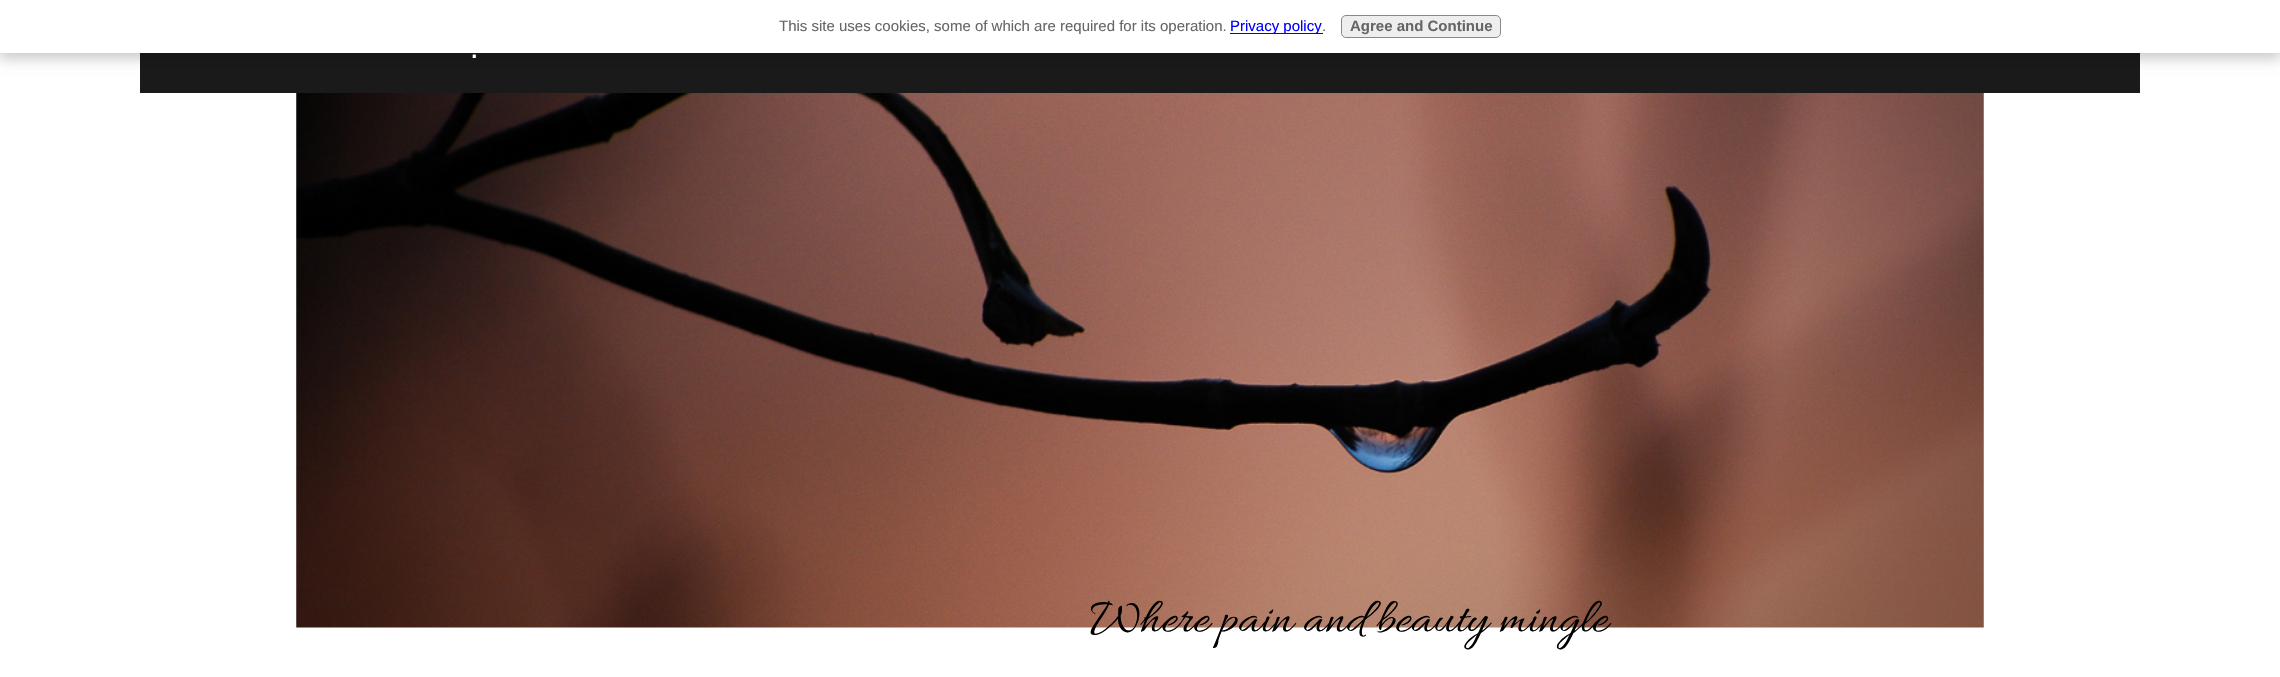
static SkFont makeFont(const char* family, int weight, float size, bool italic = false) {
  SkFontStyle style(weight, SkFontStyle::kNormal_Width,
    italic ? SkFontStyle::kItalic_Slant : SkFontStyle::kUpright_Slant);
  SkFont result(fontMgr->matchFamilyStyle(family, style), size);
  result.setSubpixel(true);
  return result;
}

static void text(SkCanvas* c, const char* s, float x, float y, const SkFont& font, SkColor color) {
  SkPaint ink(SkColor4f::FromColor(color));
  ink.setAntiAlias(true);
  c->drawString(s, x, y, font, ink);
}

static void box(SkCanvas* c, float l, float t, float r, float b, SkColor color) {
  SkPaint ink(SkColor4f::FromColor(color));
  ink.setAntiAlias(true);
  c->drawRect(SkRect::MakeLTRB(l, t, r, b), ink);
}

static void picture(SkCanvas* c, const char* path, float l, float t, float r, float b) {
  auto image = SkImages::DeferredFromEncodedData(SkData::MakeFromFileName(path));
  c->drawImageRect(image, SkRect::MakeLTRB(l, t, r, b), SkSamplingOptions());
}

void draw(SkCanvas* c) {
  SkPaint paint;
  paint.setAntiAlias(true);
  c->clear(0xffffffff);
  box(c, 140, 53, 2140, 93, 0xff1a1a1a);
  paint.setColor(0x33000000);
  paint.setMaskFilter(SkMaskFilter::MakeBlur(kNormal_SkBlurStyle, 6));
  c->drawRect(SkRect::MakeLTRB(-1, 4, 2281, 59), paint);
  paint.setMaskFilter(nullptr);
  box(c, 0, 0, 2280, 53, 0xffffffff);
  SkFont face1 = makeFont("Liberation Sans", 400, 15);
  text(c, "This site uses cookies, some of which are required for its operation.", 779, 31, face1, 0xff666666);
  box(c, 1230, 33, 1323, 34, 0xff0000ff);
  text(c, "Privacy policy", 1230, 31, face1, 0xff0000ff);
  text(c, ".", 1322, 31, face1, 0xff666666);
  paint.setColor(0xffeeeeee);
  c->drawRoundRect(SkRect::MakeLTRB(1341.5f, 15.5f, 1500.5f, 37.5f), 4.5f, 4.5f, paint);
  paint.setStyle(SkPaint::kStroke_Style);
  paint.setStrokeWidth(1);
  paint.setColor(0xff888888);
  c->drawRoundRect(SkRect::MakeLTRB(1341.5f, 15.5f, 1500.5f, 37.5f), 4.5f, 4.5f, paint);
  SkFont face2 = makeFont("Liberation Sans", 700, 15);
  text(c, "Agree and Continue", 1350, 31, face2, 0xff666666);
  picture(c, "img_01.png", 296, 93, 1984, 628);
  SkFont face3 = makeFont("Liberation Sans", 400, 31);
  text(c, ".", 470, 58, face3, 0xffffffff);
  SkFont face4 = makeFont("Allura", 400, 50);
  text(c, "Where pain and beauty mingle", 1090, 631, face4, 0xff000000);
}
